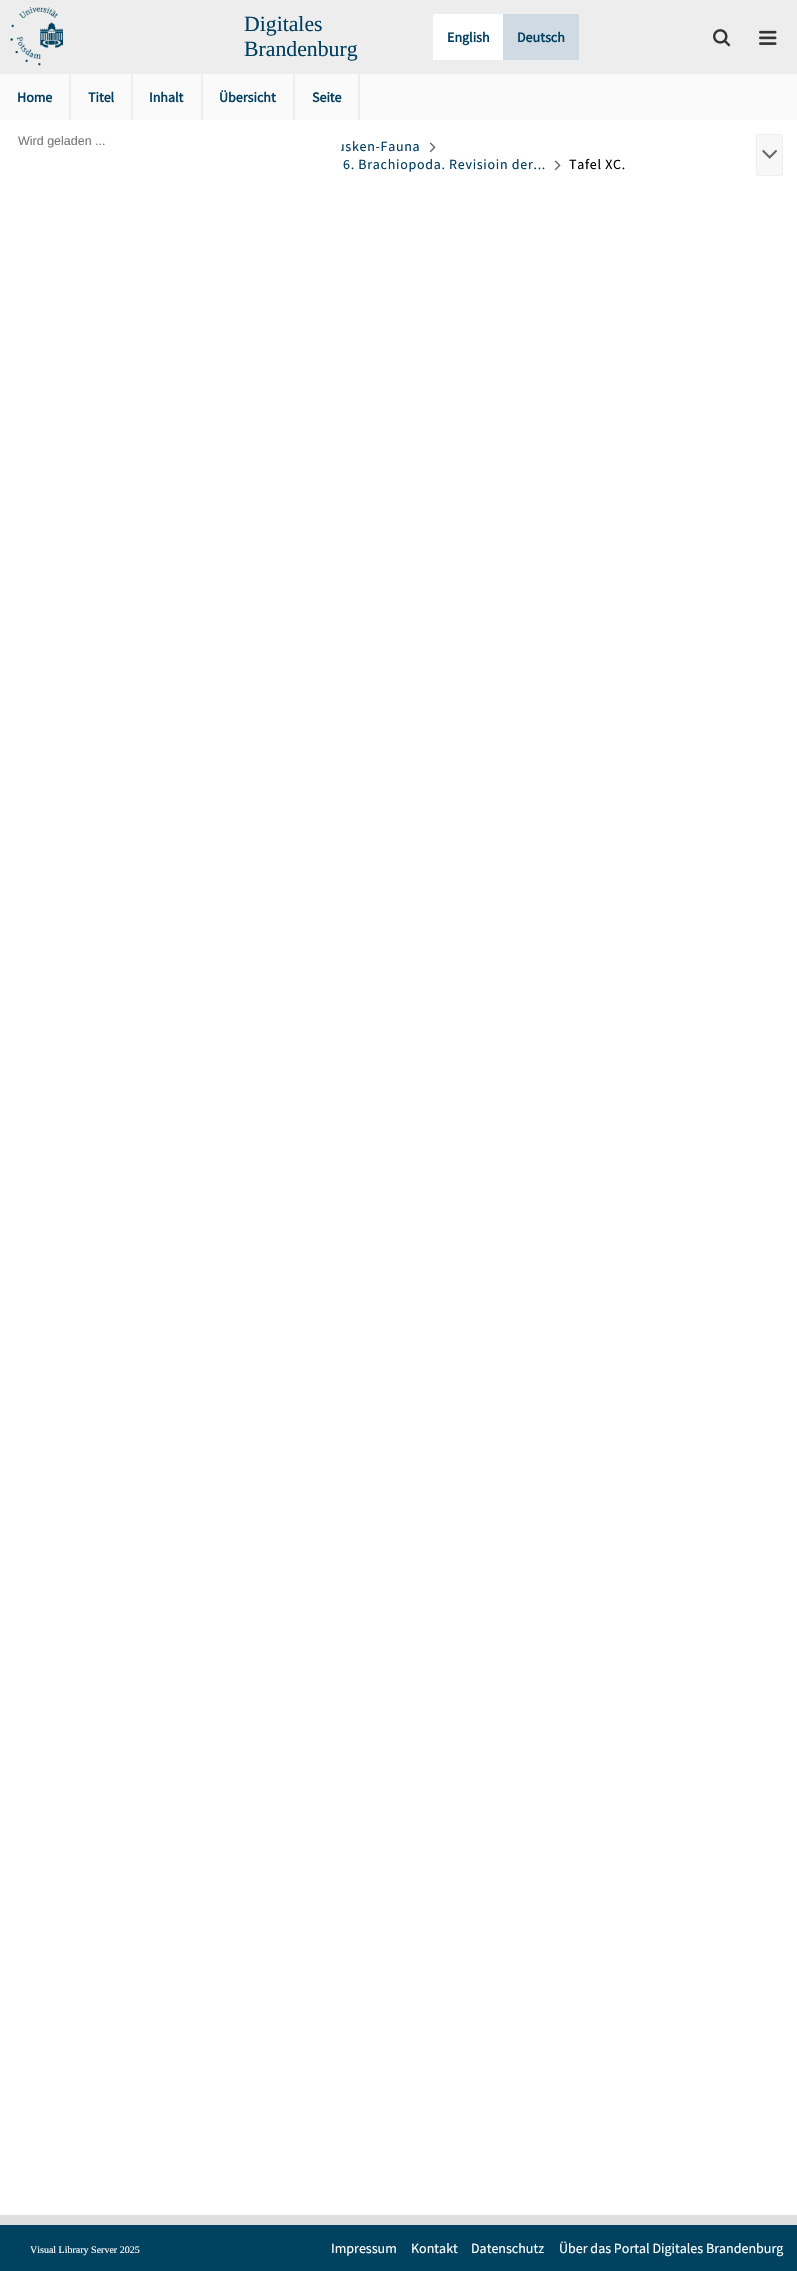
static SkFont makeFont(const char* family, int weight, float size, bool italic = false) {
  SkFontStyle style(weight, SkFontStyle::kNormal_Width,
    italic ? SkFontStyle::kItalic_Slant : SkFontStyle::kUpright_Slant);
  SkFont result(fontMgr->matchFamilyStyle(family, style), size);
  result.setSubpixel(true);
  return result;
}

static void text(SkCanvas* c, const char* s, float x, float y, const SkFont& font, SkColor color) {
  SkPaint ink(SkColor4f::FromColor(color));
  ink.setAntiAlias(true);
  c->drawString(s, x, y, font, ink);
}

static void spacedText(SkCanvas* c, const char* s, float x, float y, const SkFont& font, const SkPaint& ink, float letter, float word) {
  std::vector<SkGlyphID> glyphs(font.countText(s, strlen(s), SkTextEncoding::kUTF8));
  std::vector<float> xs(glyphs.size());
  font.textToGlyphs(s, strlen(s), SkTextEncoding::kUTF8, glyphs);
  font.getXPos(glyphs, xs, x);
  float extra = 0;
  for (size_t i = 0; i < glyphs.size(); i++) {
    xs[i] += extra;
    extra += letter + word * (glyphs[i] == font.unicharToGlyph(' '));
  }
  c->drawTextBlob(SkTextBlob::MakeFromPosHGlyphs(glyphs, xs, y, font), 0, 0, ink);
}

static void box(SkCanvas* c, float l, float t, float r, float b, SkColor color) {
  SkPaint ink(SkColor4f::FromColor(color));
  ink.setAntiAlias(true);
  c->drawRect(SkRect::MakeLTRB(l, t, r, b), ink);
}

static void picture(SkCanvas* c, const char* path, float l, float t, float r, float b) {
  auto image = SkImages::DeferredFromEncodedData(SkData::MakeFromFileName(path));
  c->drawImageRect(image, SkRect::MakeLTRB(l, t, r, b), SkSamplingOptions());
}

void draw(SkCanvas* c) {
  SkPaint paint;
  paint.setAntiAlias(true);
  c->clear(0xffffffff);
  box(c, 0, 0, 797, 74, 0xffededed);
  picture(c, "img_01.png", 10, 7, 63, 66);
  SkFont face1 = makeFont("Liberation Serif", 400, 21.75f);
  text(c, "Digitales", 244, 31, face1, 0xff003f60);
  text(c, "Brandenburg", 244, 56, face1, 0xff003f60);
  box(c, 433, 14, 503, 60, 0xffffffff);
  SkFont face2 = makeFont("Source Sans Pro", 700, 14);
  text(c, "English", 447, 42, face2, 0xff003f60);
  box(c, 503, 14, 579, 60, 0xffcfdae3);
  text(c, "Deutsch", 517, 42, face2, 0xff003f60);
  picture(c, "img_02.png", 713, 29, 731, 47);
  picture(c, "img_03.png", 759, 30, 777, 45);
  box(c, 0, 74, 797, 120, 0xfffafafa);
  box(c, 69, 74, 71, 120, 0xffededed);
  text(c, "Home", 17, 102, face2, 0xff003f60);
  box(c, 131, 74, 133, 120, 0xffededed);
  text(c, "Titel", 88, 102, face2, 0xff003f60);
  box(c, 201, 74, 203, 120, 0xffededed);
  text(c, "Inhalt", 149, 102, face2, 0xff003f60);
  box(c, 293, 74, 295, 120, 0xffededed);
  text(c, "Übersicht", 219, 102, face2, 0xff003f60);
  box(c, 358, 74, 360, 120, 0xffededed);
  text(c, "Seite", 312, 102, face2, 0xff003f60);
  SkFont face3 = makeFont("Source Sans Pro", 400, 14);
  paint.setColor(0xff003f60);
  spacedText(c, "usken-Fauna", 337, 151, face3, paint, 0.7f, 0);
  box(c, 338, 144, 341, 152, 0xffffffff);
  SkFont face4 = makeFont("Liberation Sans", 400, 12.5f);
  text(c, "Wird geladen ...", 18, 145, face4, 0xff777777);
  picture(c, "img_04.png", 429, 142, 436, 153);
  spacedText(c, "6. Brachiopoda. Revisioin der...", 343, 169, face3, paint, 0.7f, 0);
  picture(c, "img_04.png", 554, 160, 561, 171);
  paint.setColor(0xff000000);
  spacedText(c, "Tafel XC.", 569, 169, face3, paint, 0.7f, 0);
  paint.setColor(0xfff7f7f8);
  c->drawRoundRect(SkRect::MakeLTRB(756.5f, 134.5f, 782.5f, 175.5f), 1.5f, 1.5f, paint);
  paint.setStyle(SkPaint::kStroke_Style);
  paint.setStrokeWidth(1);
  paint.setColor(0xffeeeeee);
  c->drawRoundRect(SkRect::MakeLTRB(756.5f, 134.5f, 782.5f, 175.5f), 1.5f, 1.5f, paint);
  picture(c, "img_05.png", 762, 150, 777, 159);
  box(c, 0, 2225, 797, 2271, 0xff004260);
  box(c, 0, 2215, 797, 2225, 0xffdedede);
  SkFont face5 = makeFont("Liberation Serif", 400, 10);
  text(c, "Visual Library Server 2025", 30, 2253, face5, 0xffffffff);
  text(c, "Impressum", 331, 2253, face3, 0xffffffff);
  text(c, "Kontakt", 411, 2253, face3, 0xffffffff);
  text(c, "Datenschutz", 471, 2253, face3, 0xffffffff);
  text(c, "Über das Portal Digitales Brandenburg", 559, 2253, face3, 0xffffffff);
}
